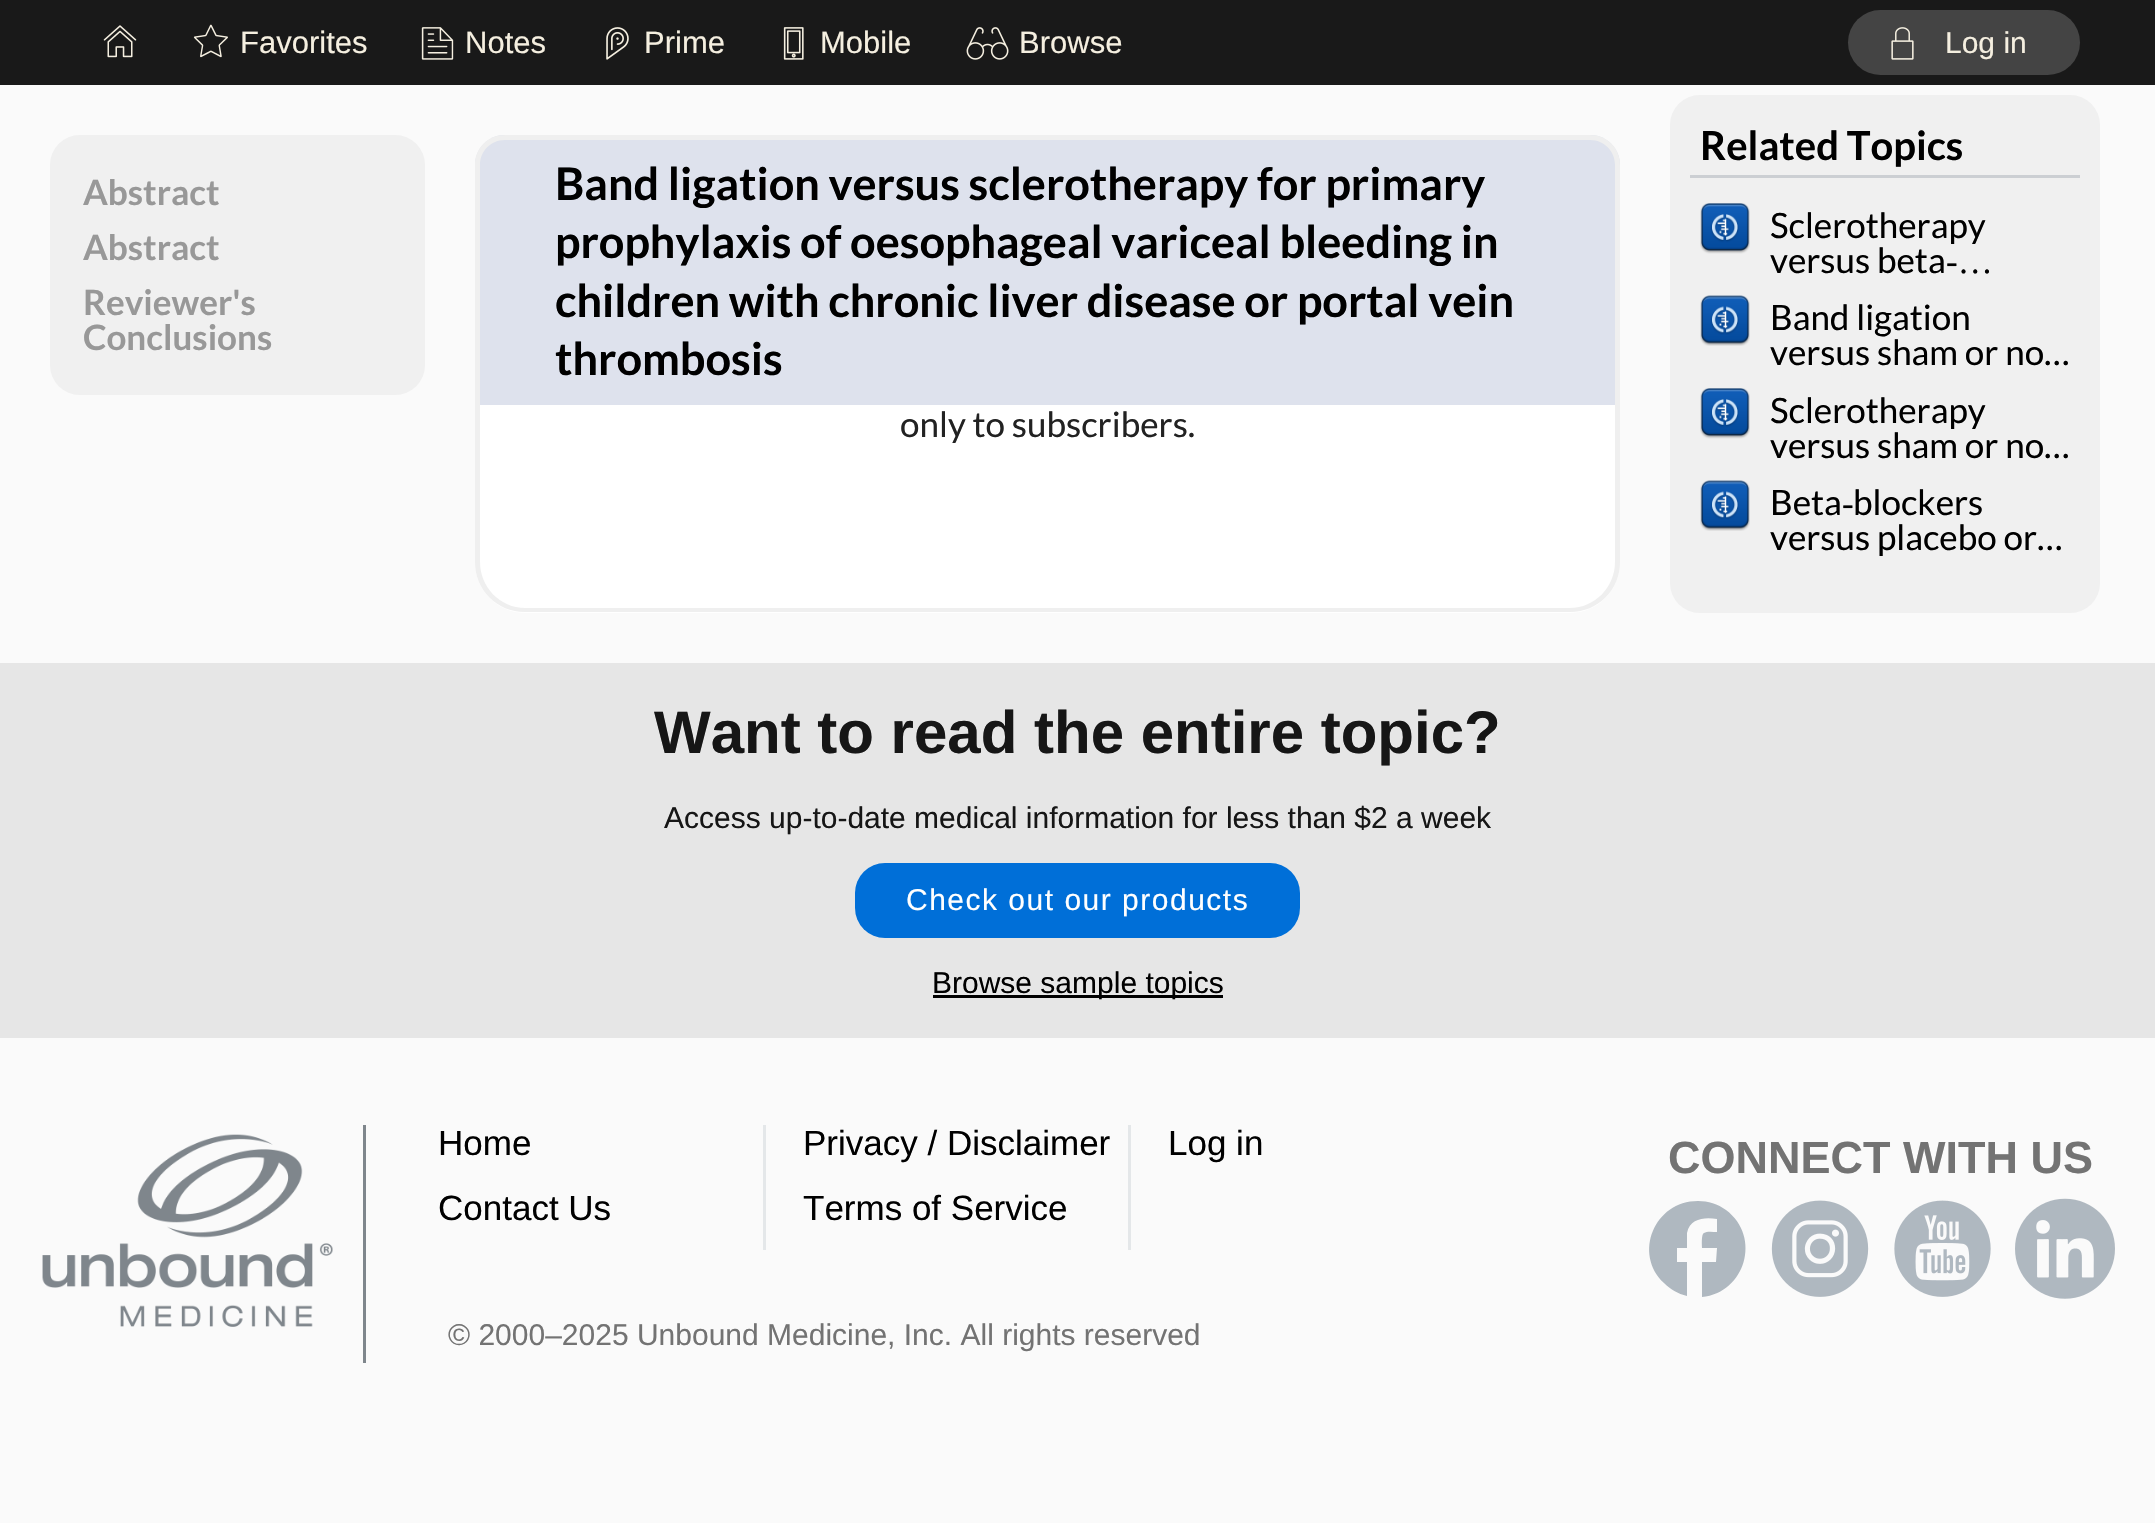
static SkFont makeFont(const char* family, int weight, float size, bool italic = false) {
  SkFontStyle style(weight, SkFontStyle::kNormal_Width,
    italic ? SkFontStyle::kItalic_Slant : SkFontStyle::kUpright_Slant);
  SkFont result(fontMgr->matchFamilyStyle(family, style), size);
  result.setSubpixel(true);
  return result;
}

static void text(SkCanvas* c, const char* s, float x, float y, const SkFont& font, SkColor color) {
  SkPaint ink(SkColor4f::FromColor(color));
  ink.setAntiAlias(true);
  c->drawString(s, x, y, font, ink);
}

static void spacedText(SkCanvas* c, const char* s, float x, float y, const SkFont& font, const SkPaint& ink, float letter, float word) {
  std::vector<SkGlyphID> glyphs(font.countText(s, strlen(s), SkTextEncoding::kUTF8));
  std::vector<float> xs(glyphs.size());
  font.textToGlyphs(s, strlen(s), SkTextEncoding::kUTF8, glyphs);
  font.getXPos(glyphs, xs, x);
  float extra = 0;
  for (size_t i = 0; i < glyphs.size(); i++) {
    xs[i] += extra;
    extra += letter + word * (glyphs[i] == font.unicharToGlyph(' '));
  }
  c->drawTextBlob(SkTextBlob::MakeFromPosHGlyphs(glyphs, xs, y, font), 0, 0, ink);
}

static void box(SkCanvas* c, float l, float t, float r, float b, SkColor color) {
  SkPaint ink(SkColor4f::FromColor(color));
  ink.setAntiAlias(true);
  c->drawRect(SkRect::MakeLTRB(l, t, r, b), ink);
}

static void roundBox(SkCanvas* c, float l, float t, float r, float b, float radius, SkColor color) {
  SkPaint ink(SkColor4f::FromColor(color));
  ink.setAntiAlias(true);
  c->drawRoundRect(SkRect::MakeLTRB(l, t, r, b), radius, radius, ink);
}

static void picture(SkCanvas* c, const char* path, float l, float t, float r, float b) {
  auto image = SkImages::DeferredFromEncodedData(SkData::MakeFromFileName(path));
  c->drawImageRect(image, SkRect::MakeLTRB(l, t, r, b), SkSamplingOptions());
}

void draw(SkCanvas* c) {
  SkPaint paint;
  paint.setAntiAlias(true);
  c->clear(0xfffafafa);
  box(c, 0, 0, 2155, 85, 0xff191919);
  picture(c, "img_01.png", 103, 25, 137, 58);
  picture(c, "img_02.png", 193, 24, 228, 58);
  SkFont face1 = makeFont("Liberation Sans", 400, 31);
  text(c, "Favorites", 240, 53, face1, 0xfff5efe0);
  picture(c, "img_03.png", 421, 27, 454, 60);
  text(c, "Notes", 465, 53, face1, 0xfff5efe0);
  picture(c, "img_04.png", 606, 27, 629, 60);
  text(c, "Prime", 644, 53, face1, 0xfff5efe0);
  picture(c, "img_05.png", 783, 27, 804, 60);
  text(c, "Mobile", 820, 53, face1, 0xfff5efe0);
  picture(c, "img_06.png", 966, 27, 1009, 60);
  text(c, "Browse", 1019, 53, face1, 0xfff5efe0);
  roundBox(c, 1848, 10, 2080, 75, 32.5f, 0xff444444);
  picture(c, "img_07.png", 1891, 27, 1914, 60);
  SkFont face2 = makeFont("Liberation Sans", 400, 30);
  text(c, "Log in", 1945, 53, face2, 0xfff5efe0);
  roundBox(c, 50, 135, 425, 395, 30, 0xfff0f0f0);
  SkFont face3 = makeFont("Lato", 700, 35);
  text(c, "Abstract", 83, 205, face3, 0xff989898);
  text(c, "Abstract", 83, 260, face3, 0xff989898);
  text(c, "Reviewer's", 83, 315, face3, 0xff989898);
  text(c, "Conclusions", 83, 350, face3, 0xff989898);
  paint.setColor(0xffffffff);
  c->drawPath(SkPathBuilder().moveTo(475, 245).lineTo(1620, 245).lineTo(1620, 563).cubicTo(1620, 590.5f, 1597.5f, 613, 1570, 613).lineTo(525, 613).cubicTo(497.5f, 613, 475, 590.5f, 475, 563).close().detach(), paint);
  paint.setColor(0xffefefef);
  c->drawPath(SkPathBuilder(SkPathFillType::kEvenOdd).moveTo(475, 245).lineTo(1620, 245).lineTo(1620, 562).cubicTo(1620, 590, 1598, 612, 1570, 612).lineTo(525, 612).cubicTo(497, 612, 475, 590, 475, 562).close().moveTo(480, 245).lineTo(1615, 245).lineTo(1615, 562).cubicTo(1615, 587, 1595, 608, 1570, 608).lineTo(525, 608).cubicTo(500, 608, 480, 587, 480, 562).close().detach(), paint);
  paint.setColor(0xffdee2ed);
  c->drawPath(SkPathBuilder().moveTo(505, 135).lineTo(1590, 135).cubicTo(1606.5f, 135, 1620, 148.5f, 1620, 165).lineTo(1620, 405).lineTo(475, 405).lineTo(475, 165).cubicTo(475, 148.5f, 488.5f, 135, 505, 135).close().detach(), paint);
  paint.setColor(0xffefefef);
  c->drawPath(SkPathBuilder(SkPathFillType::kEvenOdd).moveTo(505, 135).lineTo(1590, 135).cubicTo(1607, 135, 1620, 148, 1620, 165).lineTo(1620, 405).lineTo(475, 405).lineTo(475, 165).cubicTo(475, 148, 488, 135, 505, 135).close().moveTo(505, 140).lineTo(1590, 140).cubicTo(1604, 140, 1615, 151, 1615, 165).lineTo(1615, 405).lineTo(480, 405).lineTo(480, 165).cubicTo(480, 151, 491, 140, 505, 140).close().detach(), paint);
  SkFont face4 = makeFont("Lato", 700, 45);
  text(c, "Band ligation versus sclerotherapy for primary", 555, 200, face4, 0xff000000);
  text(c, "prophylaxis of oesophageal variceal bleeding in", 555, 258, face4, 0xff000000);
  text(c, "children with chronic liver disease or portal vein", 555, 317, face4, 0xff000000);
  text(c, "thrombosis", 555, 375, face4, 0xff000000);
  SkFont face5 = makeFont("Lato", 400, 35);
  text(c, "only to subscribers.", 900, 437, face5, 0xff222222);
  roundBox(c, 1670, 95, 2100, 613, 30, 0xfff0f0f0);
  box(c, 1690, 175, 2080, 178, 0xffcccfd3);
  SkFont face6 = makeFont("Lato", 700, 40);
  text(c, "Related Topics", 1700, 160, face6, 0xff000000);
  picture(c, "img_08.png", 1700, 203, 1750, 254);
  text(c, "Sclerotherapy", 1770, 238, face5, 0xff000000);
  text(c, "versus beta", 1770, 273, face5, 0xff000000);
  SkFont face7 = makeFont("Liberation Serif", 400, 35);
  text(c, "‐…", 1946, 273, face7, 0xff000000);
  picture(c, "img_09.png", 1700, 295, 1750, 346);
  text(c, "Band ligation", 1770, 330, face5, 0xff000000);
  text(c, "versus sham or no…", 1770, 365, face5, 0xff000000);
  picture(c, "img_08.png", 1700, 388, 1750, 439);
  text(c, "Sclerotherapy", 1770, 423, face5, 0xff000000);
  text(c, "versus sham or no…", 1770, 458, face5, 0xff000000);
  picture(c, "img_09.png", 1700, 480, 1750, 531);
  text(c, "Beta", 1770, 515, face5, 0xff000000);
  text(c, "‐", 1842, 515, face7, 0xff000000);
  text(c, "blockers", 1853, 515, face5, 0xff000000);
  text(c, "versus placebo or…", 1770, 550, face5, 0xff000000);
  box(c, 0, 663, 2155, 1038, 0xffe6e6e6);
  SkFont face8 = makeFont("Liberation Sans", 700, 60);
  text(c, "Want to read the entire topic?", 654, 753, face8, 0xff161616);
  text(c, "Access up-to-date medical information for less than $2 a week", 664, 828, face2, 0xff161616);
  roundBox(c, 855, 863, 1300, 938, 30, 0xff006fd8);
  paint.setColor(0xffffffff);
  spacedText(c, "Check out our products", 906, 910, face2, paint, 1.5f, 0);
  box(c, 933, 995, 1223, 998, 0xff000000);
  text(c, "Browse sample topics", 932, 993, face2, 0xff000000);
  box(c, 363, 1125, 366, 1363, 0xff7f868c);
  picture(c, "img_10.png", 42, 1134, 333, 1327);
  box(c, 763, 1125, 766, 1250, 0xffe4e7e9);
  SkFont face9 = makeFont("Liberation Sans", 400, 35);
  text(c, "Home", 438, 1155, face9, 0xff000000);
  text(c, "Contact Us", 438, 1220, face9, 0xff000000);
  box(c, 1128, 1125, 1131, 1250, 0xffe4e7e9);
  text(c, "Privacy / Disclaimer", 803, 1155, face9, 0xff000000);
  text(c, "Terms of Service", 803, 1220, face9, 0xff000000);
  text(c, "Log in", 1168, 1155, face9, 0xff000000);
  SkFont face10 = makeFont("Liberation Sans", 700, 45);
  text(c, "CONNECT WITH US", 1668, 1173, face10, 0xff737373);
  paint.setColor(0xffafb8c0);
  c->drawPath(SkPathBuilder().moveTo(1698, 1201).cubicTo(1654, 1201, 1633, 1254, 1664, 1283).cubicTo(1670, 1289, 1678, 1294, 1687, 1296).lineTo(1687, 1262).lineTo(1677, 1262).lineTo(1677, 1248).lineTo(1687, 1248).lineTo(1687, 1233).cubicTo(1690, 1218, 1705, 1217, 1717, 1219).lineTo(1717, 1232).cubicTo(1713, 1232, 1707, 1231, 1704, 1233).cubicTo(1701, 1234, 1702, 1246, 1702, 1248).lineTo(1717, 1248).lineTo(1716, 1262).lineTo(1702, 1262).lineTo(1702, 1297).cubicTo(1745, 1293, 1762, 1237, 1726, 1210).cubicTo(1718, 1204, 1708, 1201, 1698, 1201).close().detach(), paint);
  picture(c, "img_11.png", 1771, 1200, 1869, 1297);
  picture(c, "img_12.png", 1894, 1200, 1991, 1297);
  picture(c, "img_13.png", 2015, 1198, 2115, 1299);
  text(c, "© 2000–2025 Unbound Medicine, Inc. All rights reserved", 448, 1345, face2, 0xff737373);
}
